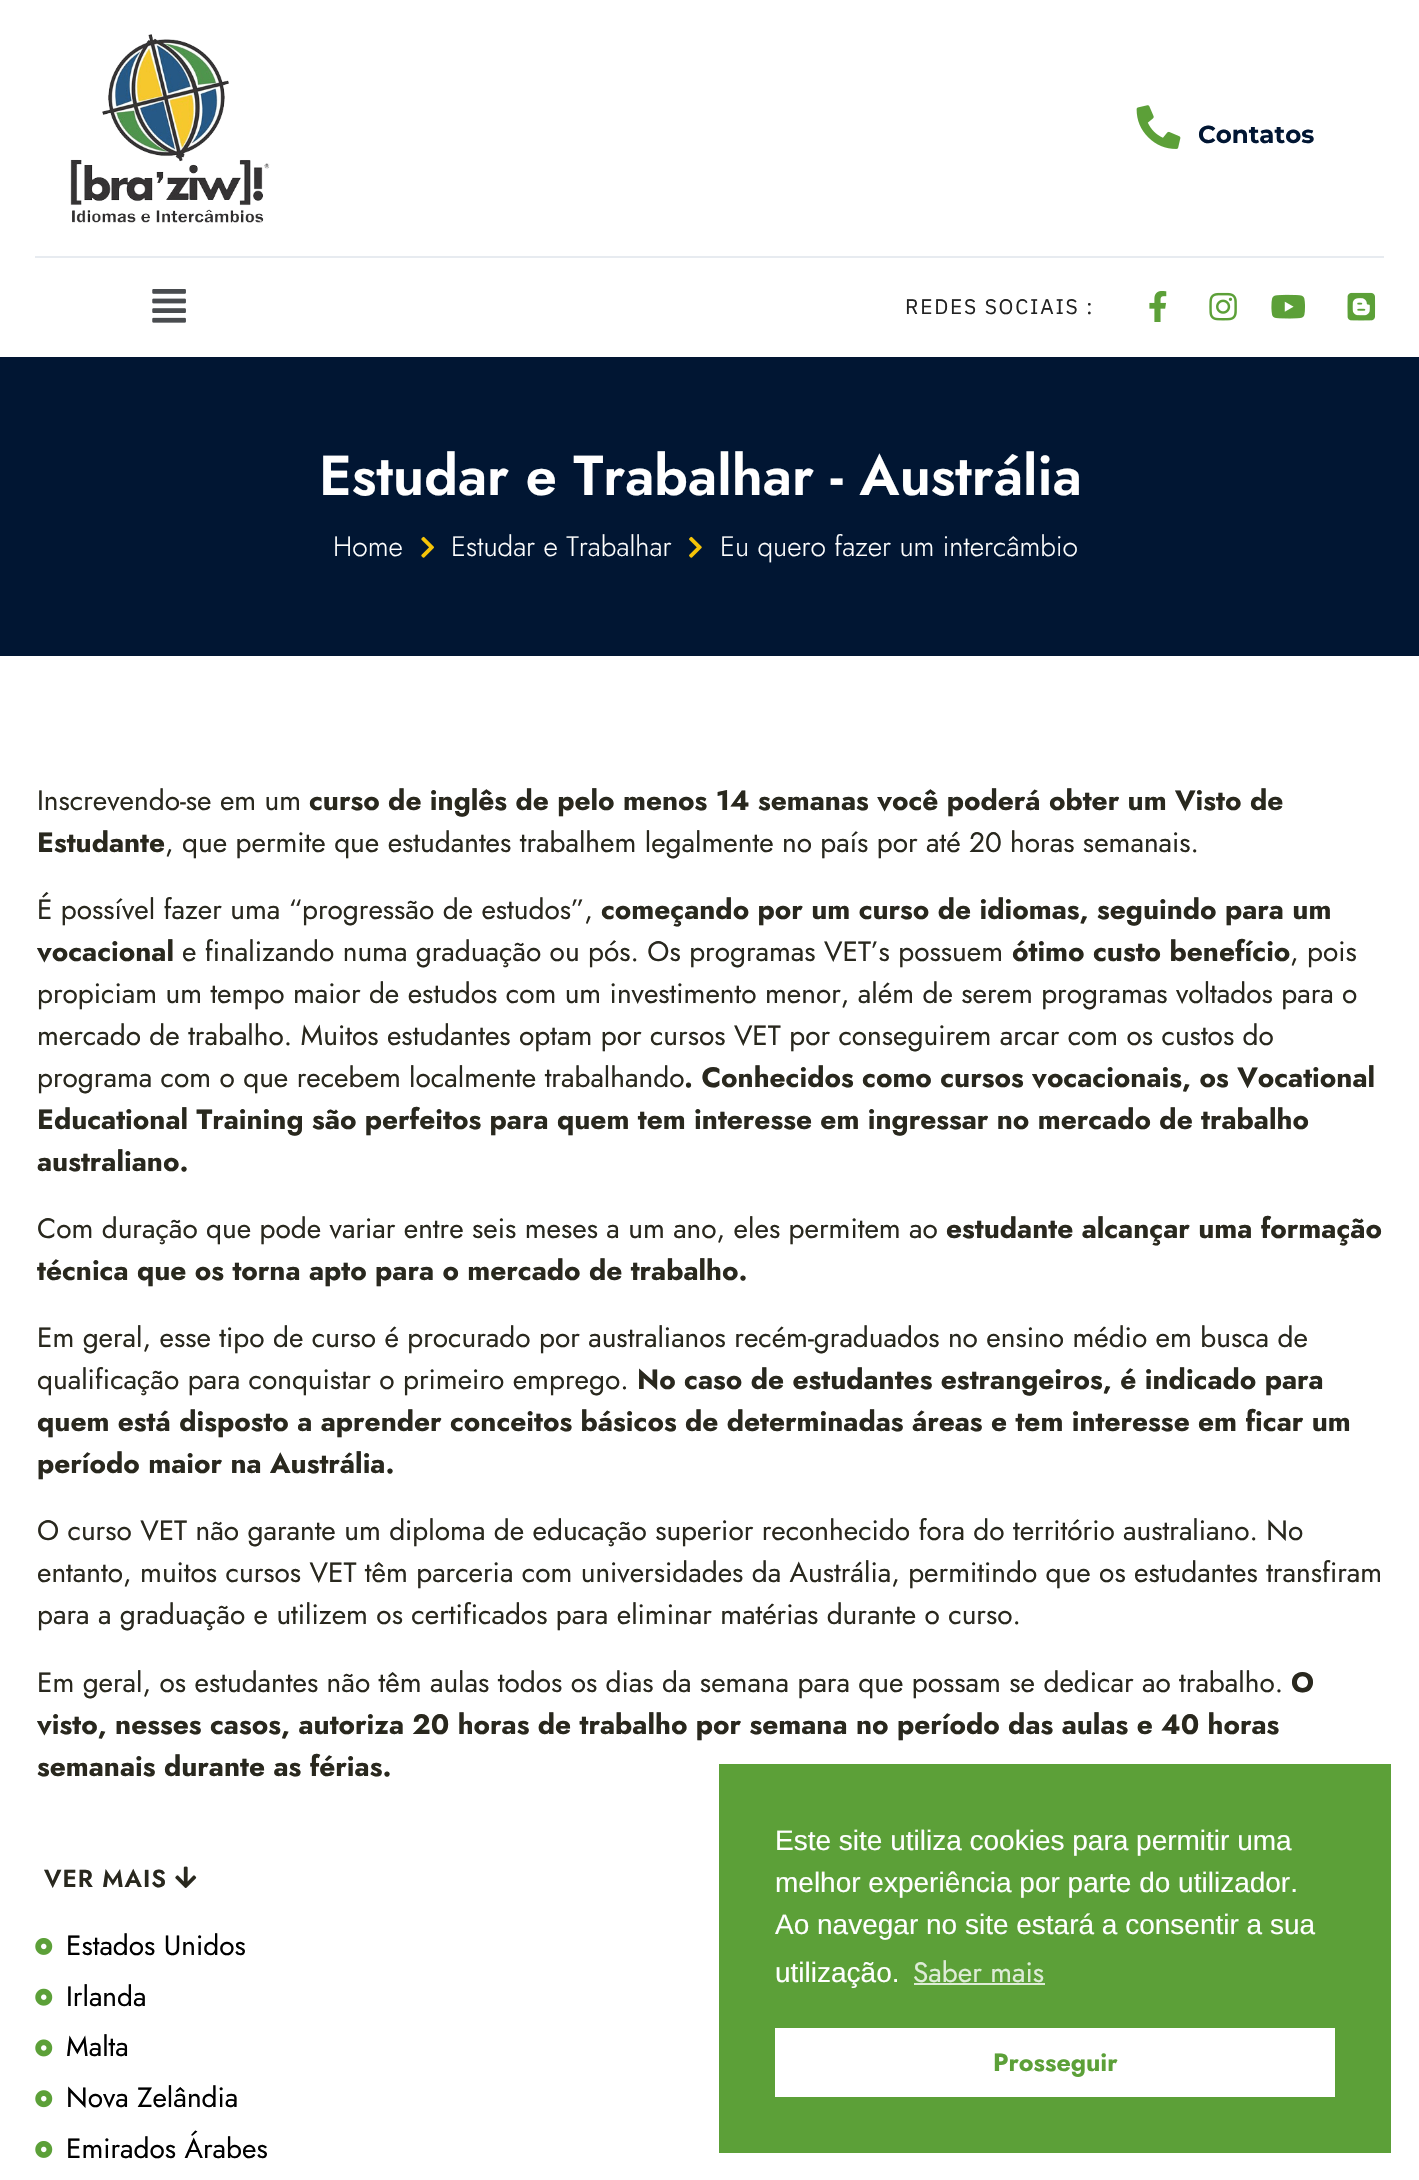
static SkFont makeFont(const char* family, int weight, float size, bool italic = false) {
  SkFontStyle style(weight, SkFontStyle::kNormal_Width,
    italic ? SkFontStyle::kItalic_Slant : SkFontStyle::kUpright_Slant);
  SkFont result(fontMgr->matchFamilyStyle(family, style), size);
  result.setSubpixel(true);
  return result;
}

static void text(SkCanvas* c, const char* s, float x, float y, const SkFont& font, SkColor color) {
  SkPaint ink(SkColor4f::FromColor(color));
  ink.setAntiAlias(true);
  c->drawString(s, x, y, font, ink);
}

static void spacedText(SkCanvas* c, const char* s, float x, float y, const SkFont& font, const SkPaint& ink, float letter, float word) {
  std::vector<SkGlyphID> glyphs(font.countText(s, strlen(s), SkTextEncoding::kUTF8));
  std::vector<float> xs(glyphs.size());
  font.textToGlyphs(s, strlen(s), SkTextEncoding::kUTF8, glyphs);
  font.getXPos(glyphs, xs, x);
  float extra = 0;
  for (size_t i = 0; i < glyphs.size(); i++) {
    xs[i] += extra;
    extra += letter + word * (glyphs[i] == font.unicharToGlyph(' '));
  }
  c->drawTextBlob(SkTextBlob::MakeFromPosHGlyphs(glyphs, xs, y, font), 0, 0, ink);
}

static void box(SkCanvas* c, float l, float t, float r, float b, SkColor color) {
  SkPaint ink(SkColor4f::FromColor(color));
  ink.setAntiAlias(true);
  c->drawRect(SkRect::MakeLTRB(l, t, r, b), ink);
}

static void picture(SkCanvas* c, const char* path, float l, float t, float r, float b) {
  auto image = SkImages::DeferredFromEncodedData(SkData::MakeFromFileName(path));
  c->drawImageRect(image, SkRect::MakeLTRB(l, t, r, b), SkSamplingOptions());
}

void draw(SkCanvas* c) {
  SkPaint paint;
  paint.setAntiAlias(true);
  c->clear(0xffffffff);
  picture(c, "img_01.png", 70, 34, 270, 223);
  picture(c, "img_02.png", 1136, 105, 1181, 149);
  SkFont face1 = makeFont("Montserrat", 700, 24.5f);
  text(c, "Contatos", 1198, 143, face1, 0xff011633);
  box(c, 35, 256, 1384, 258, 0xffe7ebf0);
  picture(c, "img_03.png", 152, 289, 186, 323);
  SkFont face2 = makeFont("IBM Plex Sans", 400, 21);
  paint.setColor(0xff222222);
  spacedText(c, "REDES SOCIAIS :", 905, 314, face2, paint, 1.75f, 0);
  picture(c, "img_04.png", 1149, 291, 1167, 322);
  picture(c, "img_05.png", 1209, 292, 1237, 321);
  picture(c, "img_06.png", 1271, 294, 1305, 319);
  picture(c, "img_07.png", 1347, 292, 1376, 321);
  box(c, 0, 357, 1419, 656, 0xff011633);
  SkFont face3 = makeFont("Jost", 600, 56);
  text(c, "Estudar e Trabalhar - Austrália", 319, 495, face3, 0xffffffff);
  SkFont face4 = makeFont("Jost", 300, 28);
  text(c, "Home", 333, 556, face4, 0xffffffff);
  picture(c, "img_08.png", 421, 536, 434, 558);
  text(c, "Estudar e Trabalhar", 451, 556, face4, 0xffffffff);
  picture(c, "img_09.png", 689, 536, 702, 558);
  text(c, "Eu quero fazer um intercâmbio", 720, 556, face4, 0xffffffff);
  SkFont face5 = makeFont("Jost", 400, 28);
  text(c, "Inscrevendo-se em um", 37, 810, face5, 0xff29281e);
  SkFont face6 = makeFont("Jost", 700, 28);
  text(c, "curso de inglês de pelo menos 14 semanas você poderá obter um Visto de", 309, 810, face6, 0xff29281e);
  text(c, "Estudante", 37, 852, face6, 0xff29281e);
  text(c, ", que permite que estudantes trabalhem legalmente no país por até 20 horas semanais.", 165, 852, face5, 0xff29281e);
  text(c, "É possível fazer uma “progressão de estudos”,", 37, 919, face5, 0xff29281e);
  text(c, "começando por um curso de idiomas, seguindo para um", 601, 919, face6, 0xff29281e);
  text(c, "vocacional", 37, 961, face6, 0xff29281e);
  text(c, "e finalizando numa graduação ou pós. Os programas VET’s possuem", 182, 961, face5, 0xff29281e);
  text(c, "ótimo custo benefício", 1012, 961, face6, 0xff29281e);
  text(c, ", pois", 1290, 961, face5, 0xff29281e);
  text(c, "propiciam um tempo maior de estudos com um investimento menor, além de serem programas voltados para o", 37, 1003, face5, 0xff29281e);
  text(c, "mercado de trabalho. Muitos estudantes optam por cursos VET por conseguirem arcar com os custos do", 37, 1045, face5, 0xff29281e);
  text(c, "programa com o que recebem localmente trabalhando", 37, 1087, face5, 0xff29281e);
  text(c, ". Conhecidos como cursos vocacionais, os Vocational", 684, 1087, face6, 0xff29281e);
  text(c, "Educational Training são perfeitos para quem tem interesse em ingressar no mercado de trabalho", 37, 1129, face6, 0xff29281e);
  text(c, "australiano.", 37, 1171, face6, 0xff29281e);
  text(c, "Com duração que pode variar entre seis meses a um ano, eles permitem ao", 37, 1238, face5, 0xff29281e);
  text(c, "estudante alcançar uma formação", 946, 1238, face6, 0xff29281e);
  text(c, "técnica que os torna apto para o mercado de trabalho.", 37, 1280, face6, 0xff29281e);
  text(c, "Em geral, esse tipo de curso é procurado por australianos recém-graduados no ensino médio em busca de", 37, 1347, face5, 0xff29281e);
  text(c, "qualificação para conquistar o primeiro emprego.", 37, 1389, face5, 0xff29281e);
  text(c, "No caso de estudantes estrangeiros, é indicado para", 637, 1389, face6, 0xff29281e);
  text(c, "quem está disposto a aprender conceitos básicos de determinadas áreas e tem interesse em ficar um", 37, 1431, face6, 0xff29281e);
  text(c, "período maior na Austrália.", 37, 1473, face6, 0xff29281e);
  text(c, "O curso VET não garante um diploma de educação superior reconhecido fora do território australiano. No", 37, 1540, face5, 0xff29281e);
  text(c, "entanto, muitos cursos VET têm parceria com universidades da Austrália, permitindo que os estudantes transfiram", 37, 1582, face5, 0xff29281e);
  text(c, "para a graduação e utilizem os certificados para eliminar matérias durante o curso.", 37, 1624, face5, 0xff29281e);
  text(c, "Em geral, os estudantes não têm aulas todos os dias da semana para que possam se dedicar ao trabalho.", 37, 1692, face5, 0xff29281e);
  text(c, "O", 1291, 1692, face6, 0xff29281e);
  text(c, "visto, nesses casos, autoriza 20 horas de trabalho por semana no período das aulas e 40 horas", 37, 1734, face6, 0xff29281e);
  text(c, "semanais durante as férias.", 37, 1776, face6, 0xff29281e);
  SkFont face7 = makeFont("Jost", 600, 24.5f);
  paint.setColor(0xff29281e);
  spacedText(c, "VER MAIS", 44, 1887, face7, paint, 1, 0);
  picture(c, "img_10.png", 175, 1866, 197, 1888);
  picture(c, "img_11.png", 35, 1938, 53, 1955);
  text(c, "Estados Unidos", 66, 1955, face5, 0xff000000);
  picture(c, "img_12.png", 35, 1988, 53, 2006);
  text(c, "Irlanda", 66, 2006, face5, 0xff000000);
  picture(c, "img_13.png", 35, 2039, 53, 2057);
  text(c, "Malta", 66, 2056, face5, 0xff000000);
  picture(c, "img_14.png", 35, 2090, 53, 2108);
  text(c, "Nova Zelândia", 66, 2107, face5, 0xff000000);
  picture(c, "img_11.png", 35, 2141, 53, 2158);
  text(c, "Emirados Árabes", 66, 2158, face5, 0xff000000);
  box(c, 719, 1764, 1391, 2153, 0xff5ca038);
  SkFont face8 = makeFont("Liberation Sans", 400, 28);
  text(c, "Este site utiliza cookies para permitir uma", 775, 1850, face8, 0xffffffff);
  text(c, "melhor experiência por parte do utilizador.", 775, 1892, face8, 0xffffffff);
  text(c, "Ao navegar no site estará a consentir a sua", 775, 1934, face8, 0xffffffff);
  text(c, "utilização.", 775, 1982, face8, 0xffffffff);
  text(c, "Saber mais", 913, 1982, face5, 0xffdeecd7);
  box(c, 914, 1983, 1045, 1985, 0xffdeecd7);
  box(c, 775, 2028, 1335, 2097, 0xffffffff);
  SkFont face9 = makeFont("Jost", 700, 25);
  text(c, "Prosseguir", 993, 2071, face9, 0xff5ca038);
}
